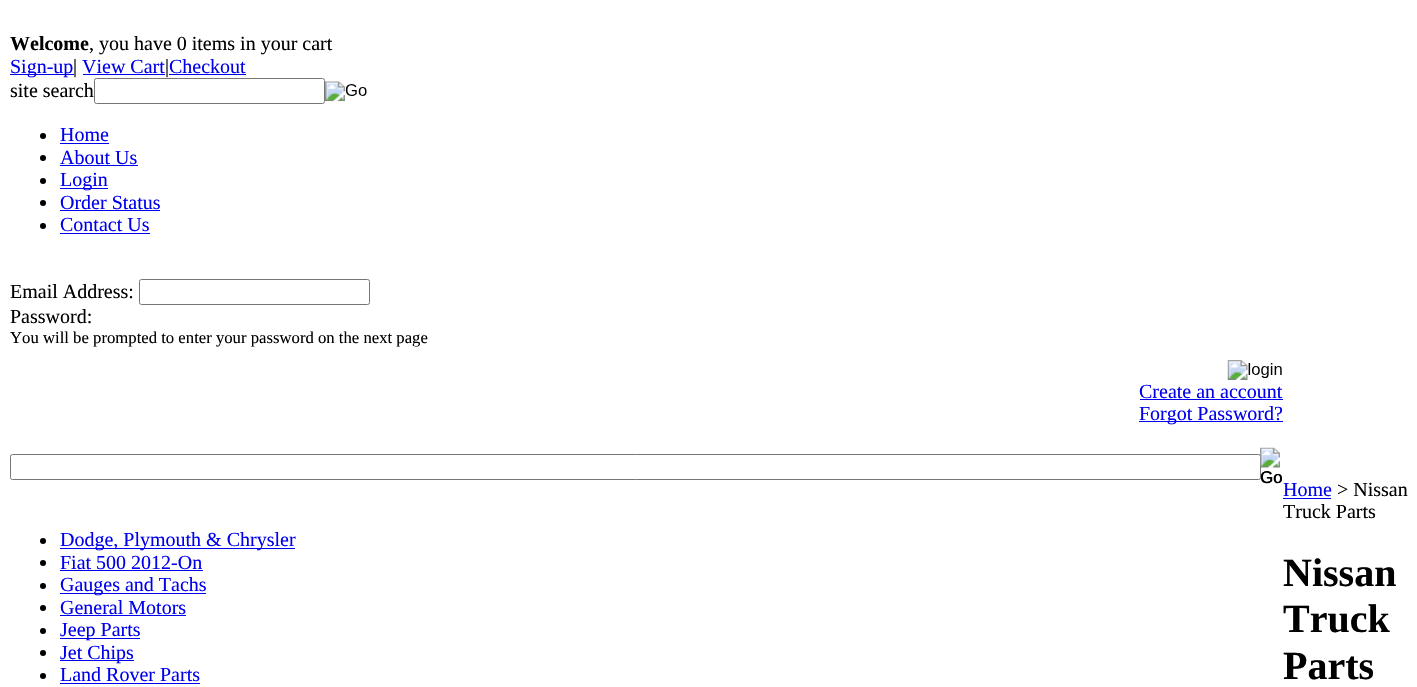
static SkFont makeFont(const char* family, int weight, float size, bool italic = false) {
  SkFontStyle style(weight, SkFontStyle::kNormal_Width,
    italic ? SkFontStyle::kItalic_Slant : SkFontStyle::kUpright_Slant);
  SkFont result(fontMgr->matchFamilyStyle(family, style), size);
  result.setSubpixel(true);
  return result;
}

static void text(SkCanvas* c, const char* s, float x, float y, const SkFont& font, SkColor color) {
  SkPaint ink(SkColor4f::FromColor(color));
  ink.setAntiAlias(true);
  c->drawString(s, x, y, font, ink);
}

static void box(SkCanvas* c, float l, float t, float r, float b, SkColor color) {
  SkPaint ink(SkColor4f::FromColor(color));
  ink.setAntiAlias(true);
  c->drawRect(SkRect::MakeLTRB(l, t, r, b), ink);
}

static void picture(SkCanvas* c, const char* path, float l, float t, float r, float b) {
  auto image = SkImages::DeferredFromEncodedData(SkData::MakeFromFileName(path));
  c->drawImageRect(image, SkRect::MakeLTRB(l, t, r, b), SkSamplingOptions());
}

void draw(SkCanvas* c) {
  SkPaint paint;
  paint.setAntiAlias(true);
  c->clear(0xffffffff);
  SkFont face1 = makeFont("Liberation Serif", 700, 20);
  text(c, "Welcome", 10, 50, face1, 0xff000000);
  SkFont face2 = makeFont("Liberation Serif", 400, 20);
  text(c, ", you have 0 items in your cart", 89, 50, face2, 0xff000000);
  box(c, 10, 74, 74, 75, 0xff0000ee);
  text(c, "Sign-up", 10, 73, face2, 0xff0000ee);
  text(c, "|", 73, 73, face2, 0xff000000);
  text(c, "View Cart", 82, 73, face2, 0xff0000ee);
  box(c, 83, 74, 165, 75, 0xff0000ee);
  text(c, "|", 165, 73, face2, 0xff000000);
  text(c, "Checkout", 169, 73, face2, 0xff0000ee);
  box(c, 169, 74, 246, 75, 0xff0000ee);
  text(c, "site search", 10, 97, face2, 0xff000000);
  paint.setStyle(SkPaint::kStroke_Style);
  paint.setStrokeWidth(1);
  paint.setColor(0xff767676);
  c->drawRoundRect(SkRect::MakeLTRB(94.5f, 78.5f, 324.5f, 103.5f), 2, 2, paint);
  picture(c, "img_01.png", 325, 81, 367, 102);
  paint.setStyle(SkPaint::kFill_Style);
  paint.setColor(0xff000000);
  c->drawCircle(43, 136, 3, paint);
  text(c, "Home", 60, 141, face2, 0xff0000ee);
  box(c, 60, 143, 109, 144, 0xff0000ee);
  c->drawCircle(43, 158, 3, paint);
  text(c, "About Us", 60, 164, face2, 0xff0000ee);
  box(c, 60, 165, 138, 166, 0xff0000ee);
  c->drawCircle(43, 181, 3, paint);
  box(c, 60, 188, 108, 189, 0xff0000ee);
  text(c, "Login", 60, 186, face2, 0xff0000ee);
  c->drawCircle(43, 203, 3, paint);
  text(c, "Order Status", 60, 209, face2, 0xff0000ee);
  box(c, 60, 210, 160, 211, 0xff0000ee);
  c->drawCircle(43, 226, 3, paint);
  text(c, "Contact Us", 60, 231, face2, 0xff0000ee);
  box(c, 60, 233, 150, 234, 0xff0000ee);
  text(c, "Email Address:", 10, 298, face2, 0xff000000);
  paint.setStyle(SkPaint::kStroke_Style);
  paint.setColor(0xff767676);
  c->drawRoundRect(SkRect::MakeLTRB(139.5f, 279.5f, 369.5f, 304.5f), 2, 2, paint);
  text(c, "Password:", 10, 323, face2, 0xff000000);
  SkFont face3 = makeFont("Liberation Serif", 400, 16.7f);
  text(c, "You will be prompted to enter your password on the next page", 10, 343, face3, 0xff000000);
  picture(c, "img_02.png", 1227, 360, 1282, 380);
  text(c, "Create an account", 1139, 398, face2, 0xff0000ee);
  box(c, 1140, 399, 1283, 400, 0xff0000ee);
  box(c, 1139, 421, 1283, 422, 0xff0000ee);
  text(c, "Forgot Password?", 1139, 420, face2, 0xff0000ee);
  c->drawRoundRect(SkRect::MakeLTRB(10.5f, 454.5f, 1260.5f, 479.5f), 2, 2, paint);
  picture(c, "img_03.png", 1260, 447, 1282, 483);
  SkFont face4 = makeFont("Liberation Sans", 400, 16.7f);
  text(c, "Go", 1260, 483, face4, 0xff000000);
  paint.setStyle(SkPaint::kFill_Style);
  paint.setColor(0xff000000);
  c->drawCircle(43, 541, 3, paint);
  box(c, 60, 548, 295, 549, 0xff0000ee);
  text(c, "Dodge, Plymouth & Chrysler", 60, 546, face2, 0xff0000ee);
  c->drawCircle(43, 563, 3, paint);
  text(c, "Fiat 500 2012-On", 60, 569, face2, 0xff0000ee);
  box(c, 60, 570, 203, 571, 0xff0000ee);
  c->drawCircle(43, 586, 3, paint);
  box(c, 60, 593, 206, 594, 0xff0000ee);
  text(c, "Gauges and Tachs", 60, 591, face2, 0xff0000ee);
  c->drawCircle(43, 608, 3, paint);
  text(c, "General Motors", 60, 614, face2, 0xff0000ee);
  box(c, 60, 615, 186, 616, 0xff0000ee);
  c->drawCircle(43, 631, 3, paint);
  box(c, 60, 638, 140, 639, 0xff0000ee);
  text(c, "Jeep Parts", 60, 636, face2, 0xff0000ee);
  c->drawCircle(43, 653, 3, paint);
  box(c, 60, 660, 134, 661, 0xff0000ee);
  text(c, "Jet Chips", 60, 659, face2, 0xff0000ee);
  c->drawCircle(43, 676, 3, paint);
  text(c, "Land Rover Parts", 60, 681, face2, 0xff0000ee);
  box(c, 60, 683, 200, 684, 0xff0000ee);
  text(c, "Home", 1283, 496, face2, 0xff0000ee);
  box(c, 1283, 498, 1331, 499, 0xff0000ee);
  text(c, "> Nissan", 1337, 496, face2, 0xff000000);
  text(c, "Truck Parts", 1283, 518, face2, 0xff000000);
  SkFont face5 = makeFont("Liberation Serif", 700, 40);
  text(c, "Nissan", 1283, 586, face5, 0xff000000);
  text(c, "Truck", 1283, 632, face5, 0xff000000);
  text(c, "Parts", 1283, 679, face5, 0xff000000);
}
